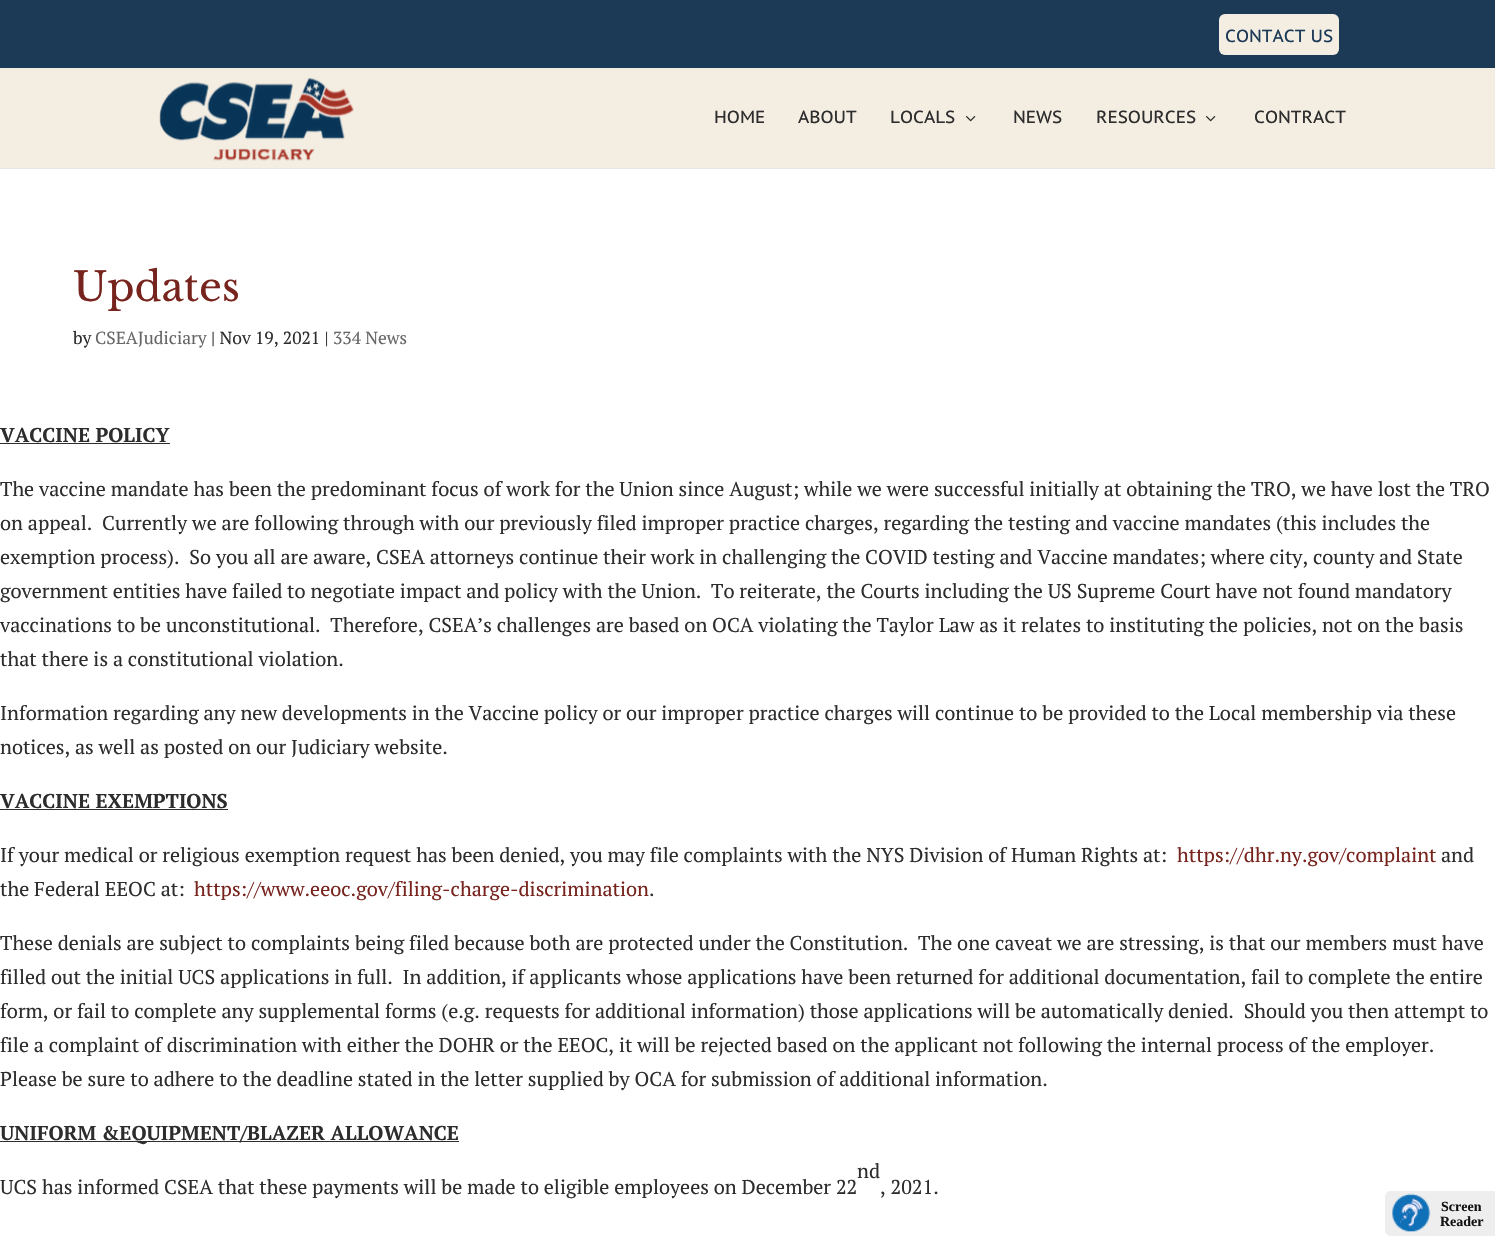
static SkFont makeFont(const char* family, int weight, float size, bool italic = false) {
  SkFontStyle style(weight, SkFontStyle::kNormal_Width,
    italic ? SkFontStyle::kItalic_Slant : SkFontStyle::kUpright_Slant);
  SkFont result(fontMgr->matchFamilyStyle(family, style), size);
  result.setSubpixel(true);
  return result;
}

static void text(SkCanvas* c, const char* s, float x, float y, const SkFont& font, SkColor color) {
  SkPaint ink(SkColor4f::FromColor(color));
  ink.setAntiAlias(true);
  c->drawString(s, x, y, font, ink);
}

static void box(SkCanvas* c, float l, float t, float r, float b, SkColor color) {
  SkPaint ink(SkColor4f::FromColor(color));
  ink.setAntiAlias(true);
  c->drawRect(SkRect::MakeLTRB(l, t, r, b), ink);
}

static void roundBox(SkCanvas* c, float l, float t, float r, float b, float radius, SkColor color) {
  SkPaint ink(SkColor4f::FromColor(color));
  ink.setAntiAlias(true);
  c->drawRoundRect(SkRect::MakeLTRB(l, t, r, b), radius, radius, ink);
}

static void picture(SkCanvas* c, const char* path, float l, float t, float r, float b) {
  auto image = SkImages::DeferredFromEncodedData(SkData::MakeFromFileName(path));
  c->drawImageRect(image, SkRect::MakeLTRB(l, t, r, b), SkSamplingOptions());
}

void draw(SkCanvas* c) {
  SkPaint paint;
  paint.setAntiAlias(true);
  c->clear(0xffffffff);
  box(c, 0, 0, 1495, 68, 0xff1c3956);
  roundBox(c, 1219, 14, 1339, 55, 6, 0xfff3ede2);
  SkFont face1 = makeFont("PT Sans Caption", 400, 17.5f);
  text(c, "CONTACT US", 1225, 42, face1, 0xff1c3956);
  box(c, 0, 168, 1495, 169, 0xffe6e6e6);
  box(c, 0, 68, 1495, 168, 0xfff3ede2);
  picture(c, "img_01.png", 159, 77, 354, 161);
  text(c, "HOME", 714, 123, face1, 0xff2d2d2d);
  text(c, "ABOUT", 798, 123, face1, 0xff2d2d2d);
  text(c, "LOCALS", 890, 123, face1, 0xff2d2d2d);
  picture(c, "img_02.png", 966, 116, 976, 122);
  text(c, "NEWS", 1013, 123, face1, 0xff2d2d2d);
  text(c, "RESOURCES", 1096, 123, face1, 0xff2d2d2d);
  picture(c, "img_02.png", 1206, 116, 1216, 122);
  text(c, "CONTRACT", 1254, 123, face1, 0xff2d2d2d);
  SkFont face2 = makeFont("Libre Baskerville", 400, 40);
  text(c, "Updates", 73, 301, face2, 0xff78241e);
  SkFont face3 = makeFont("PT Serif", 400, 17.5f);
  text(c, "by", 73, 344, face3, 0xff2d2d2d);
  text(c, "CSEAJudiciary", 95, 344, face3, 0xff666666);
  text(c, "| Nov 19, 2021 |", 211, 344, face3, 0xff2d2d2d);
  text(c, "334 News", 333, 344, face3, 0xff666666);
  SkFont face4 = makeFont("PT Serif", 700, 20);
  text(c, "VACCINE POLICY", 0, 442, face4, 0xff2d2d2d);
  box(c, 0, 443, 170, 444, 0xff2d2d2d);
  SkFont face5 = makeFont("PT Serif", 400, 20);
  text(c, "The vaccine mandate has been the predominant focus of work for the Union since August; while we were successful initially at obtaining the TRO, we have lost the TRO", 0, 496, face5, 0xff2d2d2d);
  text(c, "on appeal.  Currently we are following through with our previously filed improper practice charges, regarding the testing and vaccine mandates (this includes the", 0, 530, face5, 0xff2d2d2d);
  text(c, "exemption process).  So you all are aware, CSEA attorneys continue their work in challenging the COVID testing and Vaccine mandates; where city, county and State", 0, 564, face5, 0xff2d2d2d);
  text(c, "government entities have failed to negotiate impact and policy with the Union.  To reiterate, the Courts including the US Supreme Court have not found mandatory", 0, 598, face5, 0xff2d2d2d);
  text(c, "vaccinations to be unconstitutional.  Therefore, CSEA’s challenges are based on OCA violating the Taylor Law as it relates to instituting the policies, not on the basis", 0, 632, face5, 0xff2d2d2d);
  text(c, "that there is a constitutional violation.", 0, 666, face5, 0xff2d2d2d);
  text(c, "Information regarding any new developments in the Vaccine policy or our improper practice charges will continue to be provided to the Local membership via these", 0, 720, face5, 0xff2d2d2d);
  text(c, "notices, as well as posted on our Judiciary website.", 0, 754, face5, 0xff2d2d2d);
  text(c, "VACCINE EXEMPTIONS", 0, 808, face4, 0xff2d2d2d);
  box(c, 0, 809, 228, 810, 0xff2d2d2d);
  text(c, "If your medical or religious exemption request has been denied, you may file complaints with the NYS Division of Human Rights at:", 0, 862, face5, 0xff2d2d2d);
  text(c, "https://dhr.ny.gov/complaint", 1177, 862, face5, 0xff78241e);
  text(c, "and", 1441, 862, face5, 0xff2d2d2d);
  text(c, "the Federal EEOC at:", 0, 896, face5, 0xff2d2d2d);
  text(c, "https://www.eeoc.gov/filing-charge-discrimination", 194, 896, face5, 0xff78241e);
  text(c, ".", 649, 896, face5, 0xff2d2d2d);
  text(c, "These denials are subject to complaints being filed because both are protected under the Constitution.  The one caveat we are stressing, is that our members must have", 0, 950, face5, 0xff2d2d2d);
  text(c, "filled out the initial UCS applications in full.  In addition, if applicants whose applications have been returned for additional documentation, fail to complete the entire", 0, 984, face5, 0xff2d2d2d);
  text(c, "form, or fail to complete any supplemental forms (e.g. requests for additional information) those applications will be automatically denied.  Should you then attempt to", 0, 1018, face5, 0xff2d2d2d);
  text(c, "file a complaint of discrimination with either the DOHR or the EEOC, it will be rejected based on the applicant not following the internal process of the employer.", 0, 1052, face5, 0xff2d2d2d);
  text(c, "Please be sure to adhere to the deadline stated in the letter supplied by OCA for submission of additional information.", 0, 1086, face5, 0xff2d2d2d);
  box(c, 0, 1141, 459, 1142, 0xff2d2d2d);
  text(c, "UNIFORM &EQUIPMENT/BLAZER ALLOWANCE", 0, 1140, face4, 0xff2d2d2d);
  text(c, "nd", 857, 1178, face5, 0xff2d2d2d);
  text(c, "UCS has informed CSEA that these payments will be made to eligible employees on December 22", 0, 1194, face5, 0xff2d2d2d);
  text(c, ", 2021.", 880, 1194, face5, 0xff2d2d2d);
  paint.setColor(0xffeeeeee);
  c->drawPath(SkPathBuilder().moveTo(1391, 1191).lineTo(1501, 1191).lineTo(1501, 1236).lineTo(1391, 1236).cubicTo(1387.5f, 1236, 1385, 1233.5f, 1385, 1230).lineTo(1385, 1197).cubicTo(1385, 1193.5f, 1387.5f, 1191, 1391, 1191).close().detach(), paint);
  picture(c, "img_03.png", 1392, 1193, 1431, 1232);
  SkFont face6 = makeFont("Liberation Serif", 700, 14);
  text(c, "Screen", 1441, 1211, face6, 0xff111111);
  text(c, "Reader", 1440, 1226, face6, 0xff111111);
}
